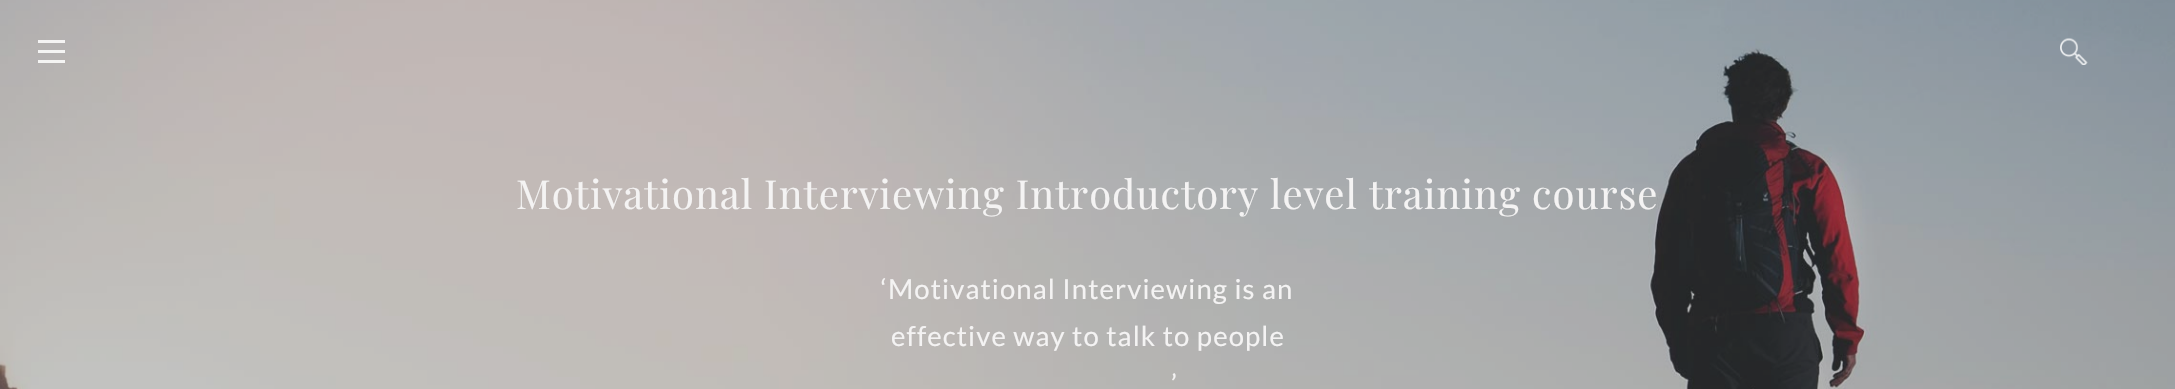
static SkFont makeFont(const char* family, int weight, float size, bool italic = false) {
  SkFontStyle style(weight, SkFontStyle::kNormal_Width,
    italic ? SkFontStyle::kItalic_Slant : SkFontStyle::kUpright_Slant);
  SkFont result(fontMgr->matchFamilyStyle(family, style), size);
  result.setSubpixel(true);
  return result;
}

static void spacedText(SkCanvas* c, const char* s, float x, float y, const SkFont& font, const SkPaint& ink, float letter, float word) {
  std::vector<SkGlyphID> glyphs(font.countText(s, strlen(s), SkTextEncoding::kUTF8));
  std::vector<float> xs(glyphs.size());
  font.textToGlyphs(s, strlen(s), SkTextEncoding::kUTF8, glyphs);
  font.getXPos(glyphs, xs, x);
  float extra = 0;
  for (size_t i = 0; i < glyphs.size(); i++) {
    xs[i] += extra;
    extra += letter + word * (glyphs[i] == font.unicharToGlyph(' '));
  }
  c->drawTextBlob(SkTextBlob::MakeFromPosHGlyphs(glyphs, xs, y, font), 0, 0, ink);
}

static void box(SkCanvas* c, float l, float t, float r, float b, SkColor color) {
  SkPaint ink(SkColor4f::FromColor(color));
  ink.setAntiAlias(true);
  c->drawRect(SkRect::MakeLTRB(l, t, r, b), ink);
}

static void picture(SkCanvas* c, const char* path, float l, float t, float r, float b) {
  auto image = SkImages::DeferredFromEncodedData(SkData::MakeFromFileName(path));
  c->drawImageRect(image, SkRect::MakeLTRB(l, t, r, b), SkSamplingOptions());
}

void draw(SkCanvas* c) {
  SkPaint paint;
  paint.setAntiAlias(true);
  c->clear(0xffffffff);
  picture(c, "img_02.png", 0, 0, 2175, 389);
  box(c, 38, 50, 65, 53, 0xfff4f4f3);
  box(c, 38, 40, 65, 43, 0xfff4f3f3);
  box(c, 38, 60, 65, 63, 0xfff4f4f3);
  picture(c, "img_01.png", 2060, 38, 2088, 65);
  SkFont face1 = makeFont("Playfair Display", 400, 40);
  paint.setColor(0xfff4f3f3);
  spacedText(c, "Motivational Interviewing Introductory level training course", 516, 209, face1, paint, 1, 0);
  SkFont face2 = makeFont("Lato", 400, 27.5f);
  spacedText(c, "‘Motivational Interviewing is an", 881, 299, face2, paint, 1.1f, 0);
  spacedText(c, "effective way to talk to people", 891, 346, face2, paint, 1.1f, 0);
  spacedText(c, "’", 1171, 394, face2, paint, 1.1f, 0);
}
